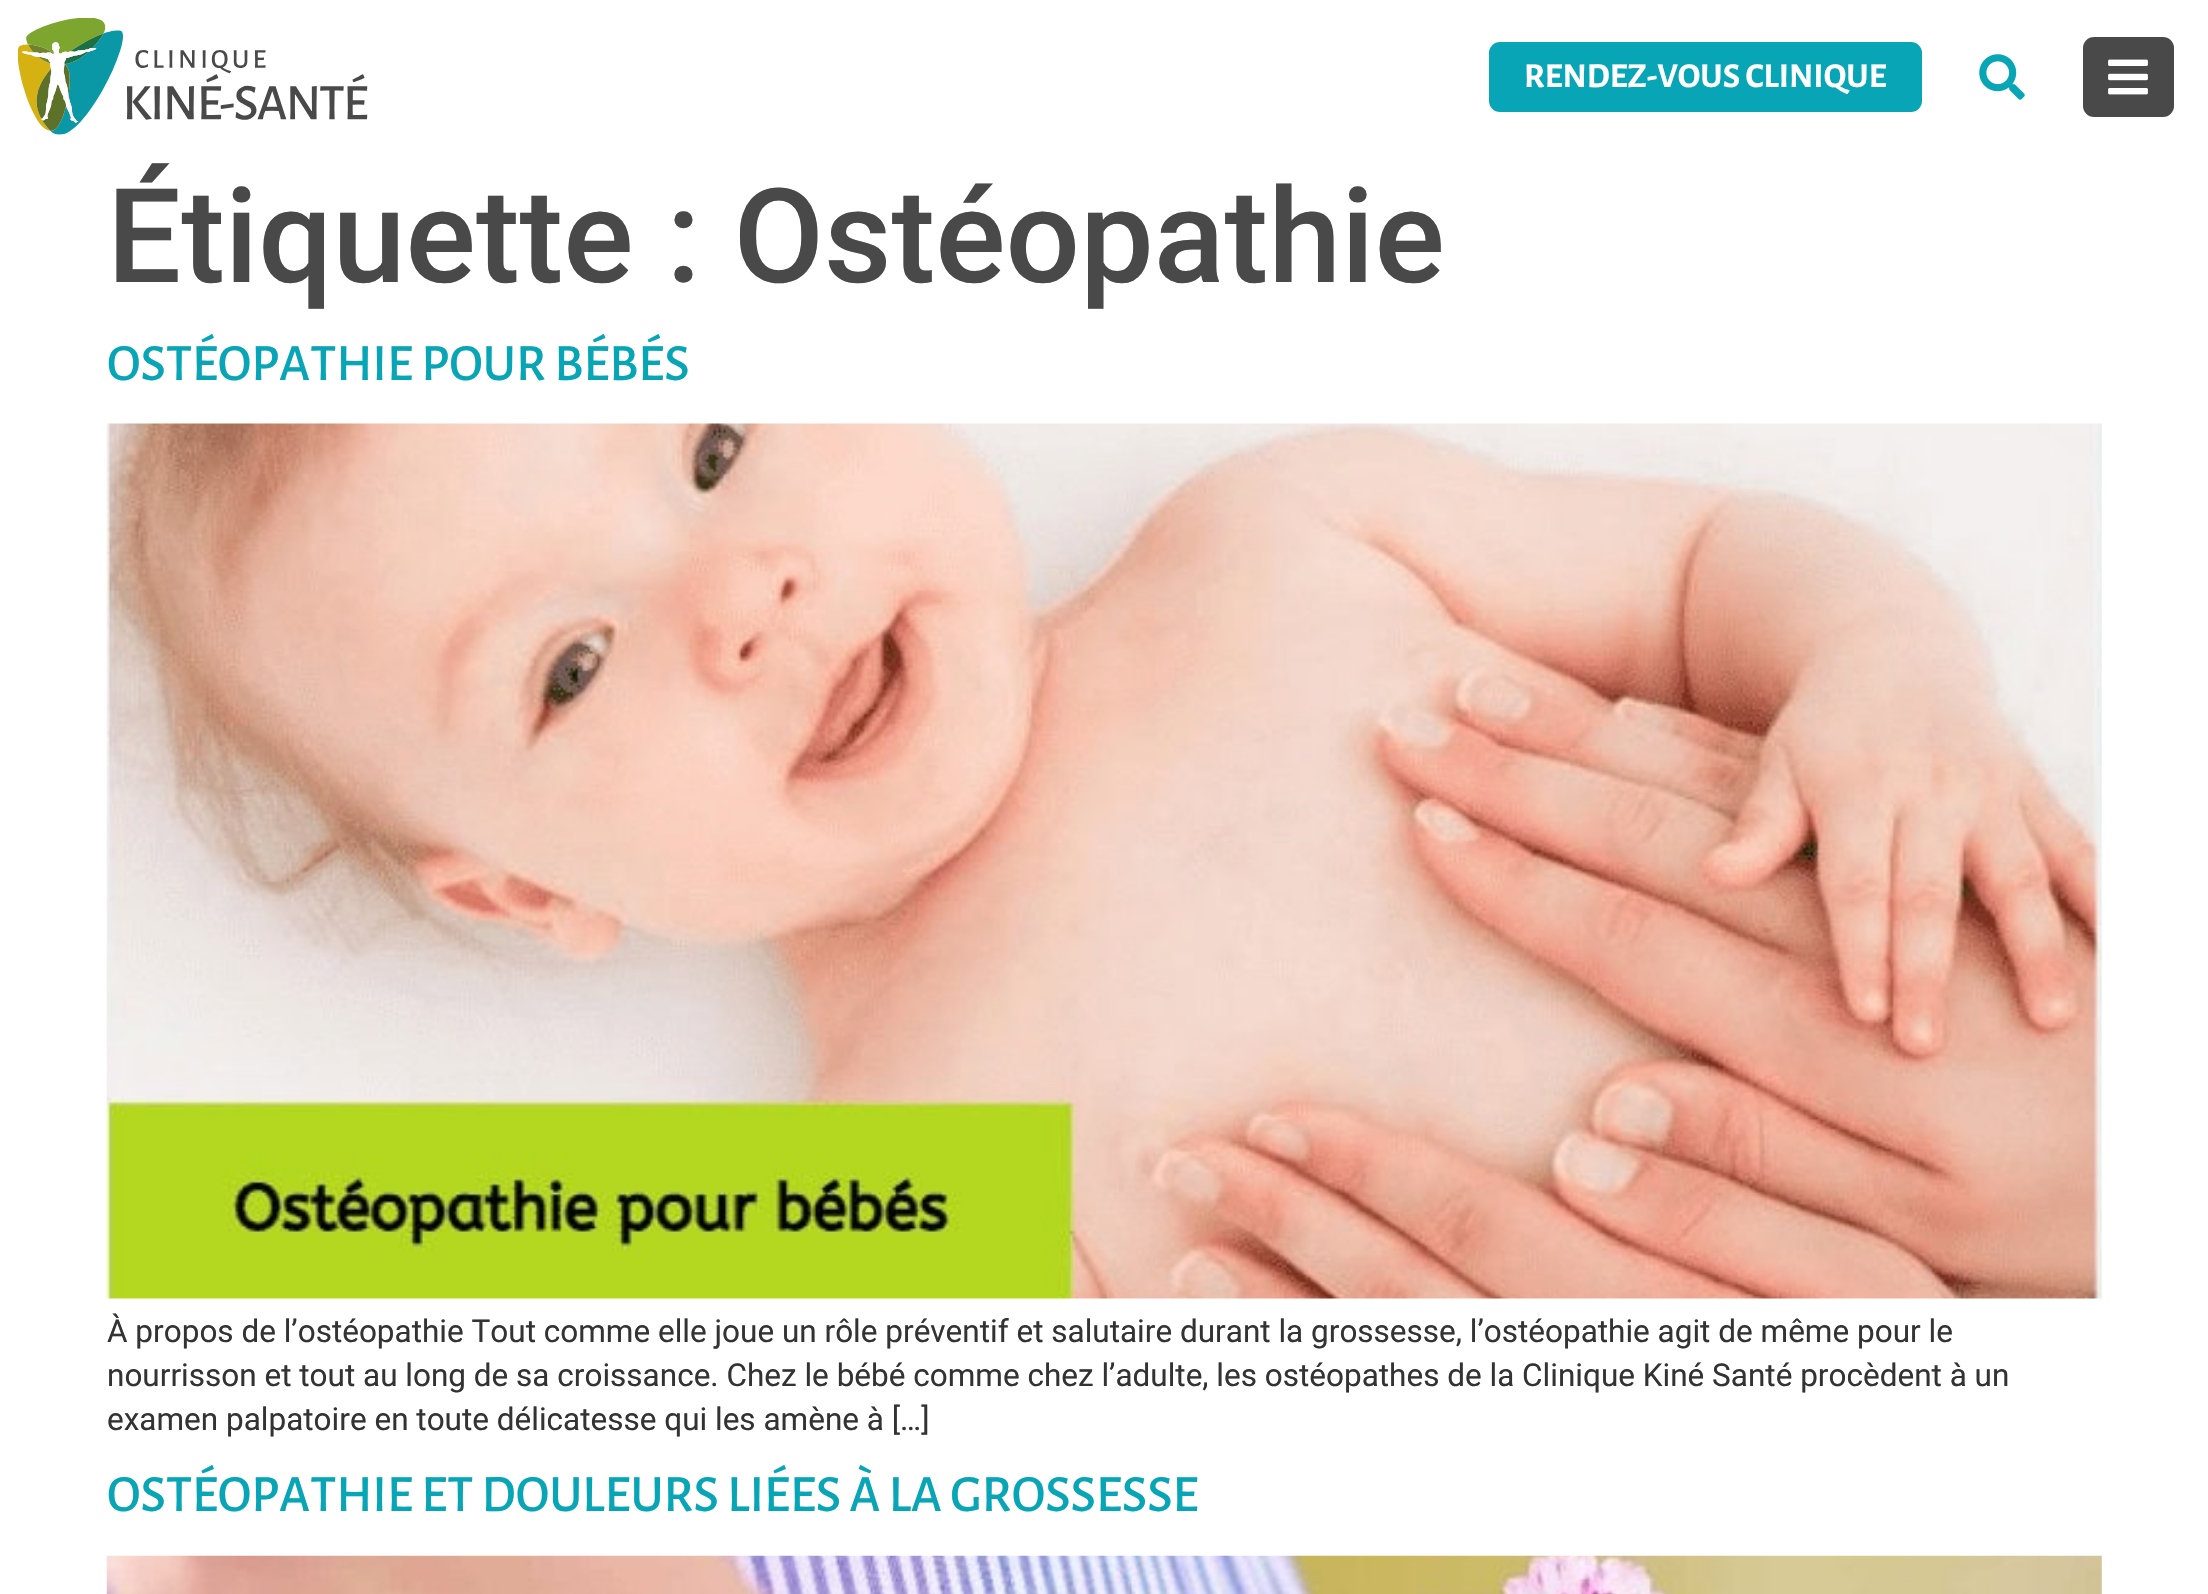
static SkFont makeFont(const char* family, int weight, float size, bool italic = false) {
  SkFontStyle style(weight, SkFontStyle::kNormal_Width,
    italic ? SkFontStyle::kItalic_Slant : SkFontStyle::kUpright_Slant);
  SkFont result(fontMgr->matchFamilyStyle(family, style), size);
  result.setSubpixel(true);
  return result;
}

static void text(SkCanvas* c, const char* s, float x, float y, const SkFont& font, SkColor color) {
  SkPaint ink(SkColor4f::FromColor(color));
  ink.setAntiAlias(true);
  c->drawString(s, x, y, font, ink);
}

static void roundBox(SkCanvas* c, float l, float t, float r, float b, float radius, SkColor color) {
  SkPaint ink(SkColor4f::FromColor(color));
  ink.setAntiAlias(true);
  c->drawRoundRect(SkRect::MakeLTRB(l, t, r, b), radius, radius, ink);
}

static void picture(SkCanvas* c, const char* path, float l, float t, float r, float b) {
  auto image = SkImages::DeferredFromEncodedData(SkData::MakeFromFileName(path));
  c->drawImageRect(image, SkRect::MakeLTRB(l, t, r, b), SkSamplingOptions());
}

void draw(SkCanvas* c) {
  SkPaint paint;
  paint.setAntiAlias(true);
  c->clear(0xffffffff);
  picture(c, "img_01.png", 18, 18, 368, 135);
  roundBox(c, 1489, 42, 1922, 112, 11, 0xff07a5b5);
  SkFont face1 = makeFont("Alegreya Sans", 700, 35);
  text(c, "RENDEZ-VOUS CLINIQUE", 1524, 87, face1, 0xffffffff);
  picture(c, "img_02.png", 1979, 54, 2025, 100);
  roundBox(c, 2083, 37, 2174, 117, 11, 0xff494949);
  picture(c, "img_03.png", 2108, 59, 2148, 95);
  SkFont face2 = makeFont("Roboto", 500, 131.25f);
  text(c, "Étiquette : Ostéopathie", 107, 282, face2, 0xff494949);
  SkFont face3 = makeFont("Alegreya Sans", 500, 52.5f);
  text(c, "OSTÉOPATHIE POUR BÉBÉS", 107, 380, face3, 0xff07a5b5);
  picture(c, "img_04.png", 106, 423, 2102, 1299);
  SkFont face4 = makeFont("Roboto", 400, 31.5f);
  text(c, "À propos de l’ostéopathie Tout comme elle joue un rôle préventif et salutaire durant la grossesse, l’ostéopathie agit de même pour le", 107, 1342, face4, 0xff333333);
  text(c, "nourrisson et tout au long de sa croissance. Chez le bébé comme chez l’adulte, les ostéopathes de la Clinique Kiné Santé procèdent à un", 107, 1386, face4, 0xff333333);
  text(c, "examen palpatoire en toute délicatesse qui les amène à […]", 107, 1430, face4, 0xff333333);
  text(c, "OSTÉOPATHIE ET DOULEURS LIÉES À LA GROSSESSE", 107, 1511, face3, 0xff07a5b5);
  picture(c, "img_05.png", 106, 1555, 2102, 1594);
}
